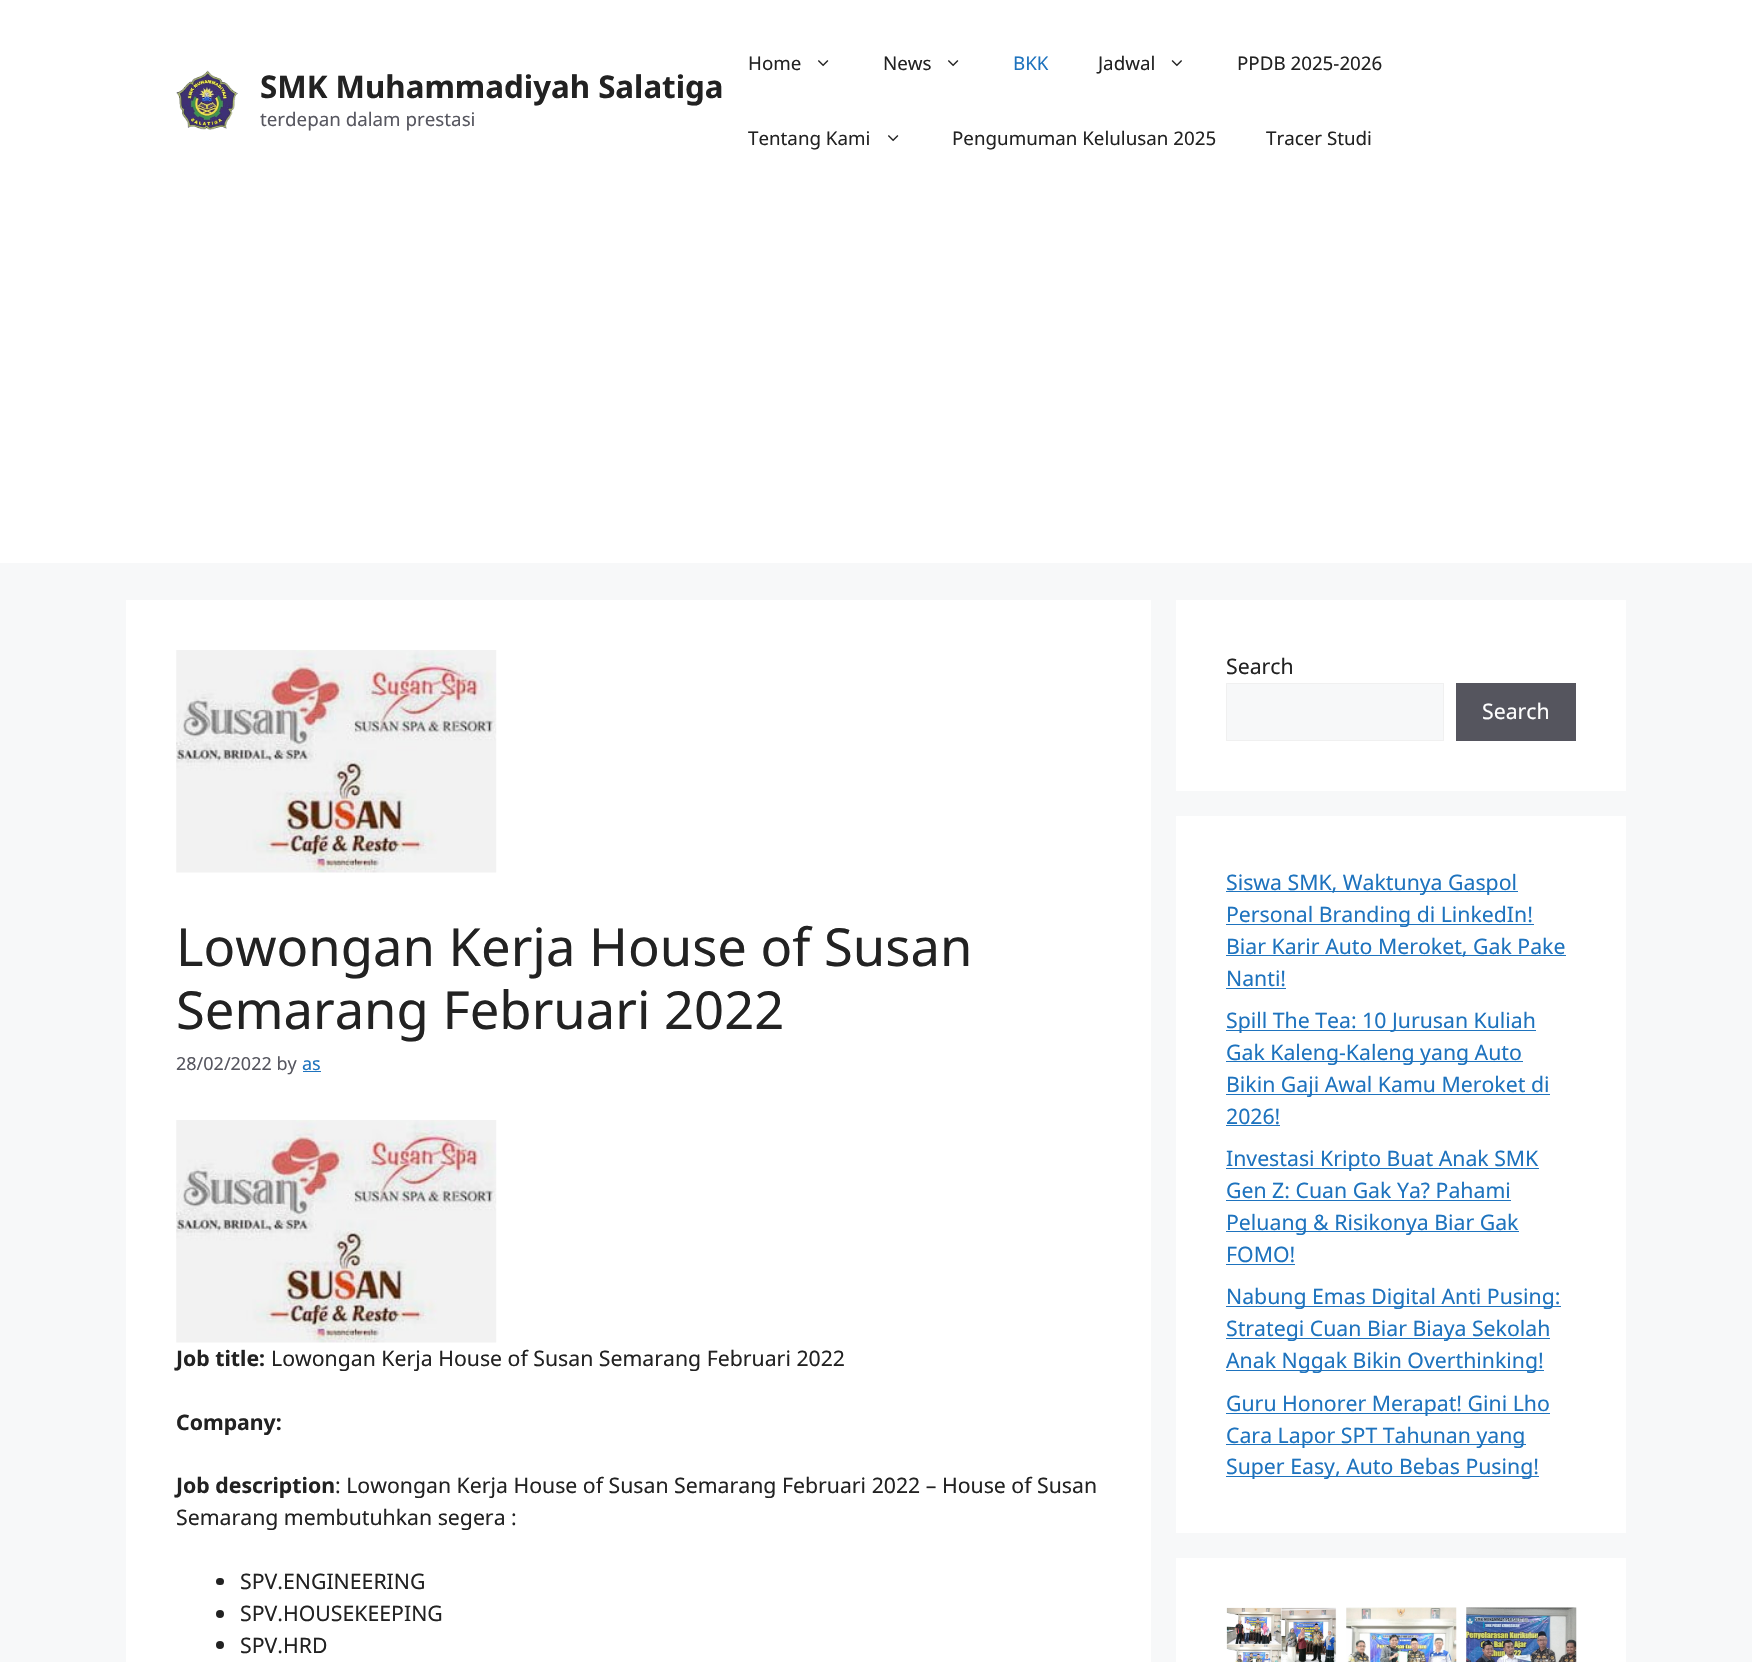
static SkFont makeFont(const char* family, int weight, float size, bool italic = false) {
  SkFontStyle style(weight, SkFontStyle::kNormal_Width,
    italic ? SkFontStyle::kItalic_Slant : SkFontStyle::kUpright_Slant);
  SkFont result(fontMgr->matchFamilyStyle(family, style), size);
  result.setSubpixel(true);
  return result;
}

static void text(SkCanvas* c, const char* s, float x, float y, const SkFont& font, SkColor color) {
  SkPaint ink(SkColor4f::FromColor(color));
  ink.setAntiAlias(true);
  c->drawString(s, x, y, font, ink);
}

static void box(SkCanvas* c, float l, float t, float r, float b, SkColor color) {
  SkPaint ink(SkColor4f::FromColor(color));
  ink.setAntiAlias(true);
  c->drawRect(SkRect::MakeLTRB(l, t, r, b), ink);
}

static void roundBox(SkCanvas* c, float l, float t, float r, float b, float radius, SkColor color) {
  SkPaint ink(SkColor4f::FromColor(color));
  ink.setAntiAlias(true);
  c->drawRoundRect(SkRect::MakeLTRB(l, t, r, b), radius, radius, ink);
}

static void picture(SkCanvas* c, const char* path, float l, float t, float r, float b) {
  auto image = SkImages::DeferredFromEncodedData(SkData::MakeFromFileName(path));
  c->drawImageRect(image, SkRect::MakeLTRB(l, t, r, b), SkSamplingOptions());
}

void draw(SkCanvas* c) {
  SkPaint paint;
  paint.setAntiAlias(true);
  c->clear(0xfff7f8f9);
  box(c, 0, 0, 1752, 563, 0xffffffff);
  picture(c, "img_01.png", 176, 70, 238, 130);
  SkFont face1 = makeFont("Noto Sans", 700, 31.25f);
  text(c, "SMK Muhammadiyah Salatiga", 260, 98, face1, 0xff222222);
  SkFont face2 = makeFont("Noto Sans", 400, 18.75f);
  text(c, "terdepan dalam prestasi", 260, 126, face2, 0xff575760);
  text(c, "Home", 748, 70, face2, 0xff222222);
  picture(c, "img_02.png", 818, 60, 829, 67);
  text(c, "News", 883, 70, face2, 0xff222222);
  picture(c, "img_02.png", 948, 60, 959, 67);
  text(c, "BKK", 1013, 70, face2, 0xff1e73be);
  text(c, "Jadwal", 1098, 70, face2, 0xff222222);
  picture(c, "img_03.png", 1171, 60, 1182, 67);
  text(c, "PPDB 2025-2026", 1237, 70, face2, 0xff222222);
  text(c, "Tentang Kami", 748, 145, face2, 0xff222222);
  picture(c, "img_02.png", 888, 135, 899, 142);
  text(c, "Pengumuman Kelulusan 2025", 952, 145, face2, 0xff222222);
  text(c, "Tracer Studi", 1266, 145, face2, 0xff222222);
  box(c, 126, 600, 1151, 1662, 0xffffffff);
  picture(c, "img_04.png", 176, 650, 497, 873);
  SkFont face3 = makeFont("Noto Sans", 400, 52.5f);
  text(c, "Lowongan Kerja House of Susan", 176, 966, face3, 0xff222222);
  text(c, "Semarang Februari 2022", 176, 1029, face3, 0xff222222);
  SkFont face4 = makeFont("Noto Sans", 400, 18);
  text(c, "28/02/2022 by", 176, 1070, face4, 0xff575760);
  text(c, "as", 302, 1070, face4, 0xff1e73be);
  box(c, 303, 1071, 321, 1072, 0xff1e73be);
  picture(c, "img_05.png", 176, 1120, 497, 1343);
  SkFont face5 = makeFont("Noto Sans", 700, 21.25f);
  text(c, "Job title:", 176, 1366, face5, 0xff222222);
  SkFont face6 = makeFont("Noto Sans", 400, 21.25f);
  text(c, "Lowongan Kerja House of Susan Semarang Februari 2022", 271, 1366, face6, 0xff222222);
  text(c, "Company:", 176, 1430, face5, 0xff222222);
  text(c, "Job description", 176, 1493, face5, 0xff222222);
  text(c, ": Lowongan Kerja House of Susan Semarang Februari 2022 – House of Susan", 335, 1493, face6, 0xff222222);
  text(c, "Semarang membutuhkan segera :", 176, 1525, face6, 0xff222222);
  roundBox(c, 216, 1578, 224, 1585, 3.5f, 0xff222222);
  text(c, "SPV.ENGINEERING", 240, 1589, face6, 0xff222222);
  paint.setColor(0xff222222);
  c->drawCircle(220, 1614, 4, paint);
  text(c, "SPV.HOUSEKEEPING", 240, 1621, face6, 0xff222222);
  c->drawCircle(220, 1645, 4, paint);
  text(c, "SPV.HRD", 240, 1653, face6, 0xff222222);
  box(c, 1176, 600, 1626, 791, 0xffffffff);
  text(c, "Search", 1226, 674, face6, 0xff222222);
  paint.setColor(0xfff7f8f9);
  c->drawRect(SkRect::MakeLTRB(1226.5f, 683.5f, 1443.5f, 740.5f), paint);
  paint.setStyle(SkPaint::kStroke_Style);
  paint.setStrokeWidth(1);
  paint.setColor(0xfff0f0f0);
  c->drawRect(SkRect::MakeLTRB(1226.5f, 683.5f, 1443.5f, 740.5f), paint);
  box(c, 1456, 683, 1576, 741, 0xff55555e);
  text(c, "Search", 1482, 719, face6, 0xffffffff);
  box(c, 1176, 816, 1626, 1533, 0xffffffff);
  box(c, 1226, 891, 1518, 892, 0xff1e73be);
  text(c, "Siswa SMK, Waktunya Gaspol", 1226, 890, face6, 0xff1e73be);
  box(c, 1226, 924, 1534, 925, 0xff1e73be);
  text(c, "Personal Branding di LinkedIn!", 1226, 922, face6, 0xff1e73be);
  box(c, 1226, 955, 1566, 956, 0xff1e73be);
  text(c, "Biar Karir Auto Meroket, Gak Pake", 1226, 954, face6, 0xff1e73be);
  text(c, "Nanti!", 1226, 986, face6, 0xff1e73be);
  box(c, 1226, 988, 1286, 989, 0xff1e73be);
  box(c, 1226, 1030, 1536, 1031, 0xff1e73be);
  text(c, "Spill The Tea: 10 Jurusan Kuliah", 1226, 1028, face6, 0xff1e73be);
  box(c, 1226, 1061, 1523, 1062, 0xff1e73be);
  text(c, "Gak Kaleng-Kaleng yang Auto", 1226, 1060, face6, 0xff1e73be);
  box(c, 1226, 1094, 1550, 1095, 0xff1e73be);
  text(c, "Bikin Gaji Awal Kamu Meroket di", 1226, 1092, face6, 0xff1e73be);
  text(c, "2026!", 1226, 1124, face6, 0xff1e73be);
  box(c, 1226, 1125, 1280, 1126, 0xff1e73be);
  box(c, 1226, 1168, 1539, 1169, 0xff1e73be);
  text(c, "Investasi Kripto Buat Anak SMK", 1226, 1166, face6, 0xff1e73be);
  text(c, "Gen Z: Cuan Gak Ya? Pahami", 1226, 1198, face6, 0xff1e73be);
  box(c, 1226, 1200, 1511, 1201, 0xff1e73be);
  box(c, 1226, 1231, 1519, 1232, 0xff1e73be);
  text(c, "Peluang & Risikonya Biar Gak", 1226, 1230, face6, 0xff1e73be);
  text(c, "FOMO!", 1226, 1262, face6, 0xff1e73be);
  box(c, 1226, 1264, 1295, 1265, 0xff1e73be);
  box(c, 1226, 1306, 1561, 1307, 0xff1e73be);
  text(c, "Nabung Emas Digital Anti Pusing:", 1226, 1304, face6, 0xff1e73be);
  box(c, 1226, 1338, 1550, 1339, 0xff1e73be);
  text(c, "Strategi Cuan Biar Biaya Sekolah", 1226, 1336, face6, 0xff1e73be);
  box(c, 1226, 1370, 1544, 1371, 0xff1e73be);
  text(c, "Anak Nggak Bikin Overthinking!", 1226, 1368, face6, 0xff1e73be);
  box(c, 1226, 1413, 1550, 1414, 0xff1e73be);
  text(c, "Guru Honorer Merapat! Gini Lho", 1226, 1411, face6, 0xff1e73be);
  box(c, 1226, 1444, 1526, 1445, 0xff1e73be);
  text(c, "Cara Lapor SPT Tahunan yang", 1226, 1443, face6, 0xff1e73be);
  box(c, 1226, 1476, 1539, 1477, 0xff1e73be);
  text(c, "Super Easy, Auto Bebas Pusing!", 1226, 1474, face6, 0xff1e73be);
  box(c, 1176, 1558, 1626, 1662, 0xffffffff);
  picture(c, "img_06.png", 1226, 1607, 1337, 1662);
  picture(c, "img_07.png", 1346, 1607, 1457, 1662);
  picture(c, "img_08.png", 1466, 1607, 1577, 1662);
}
